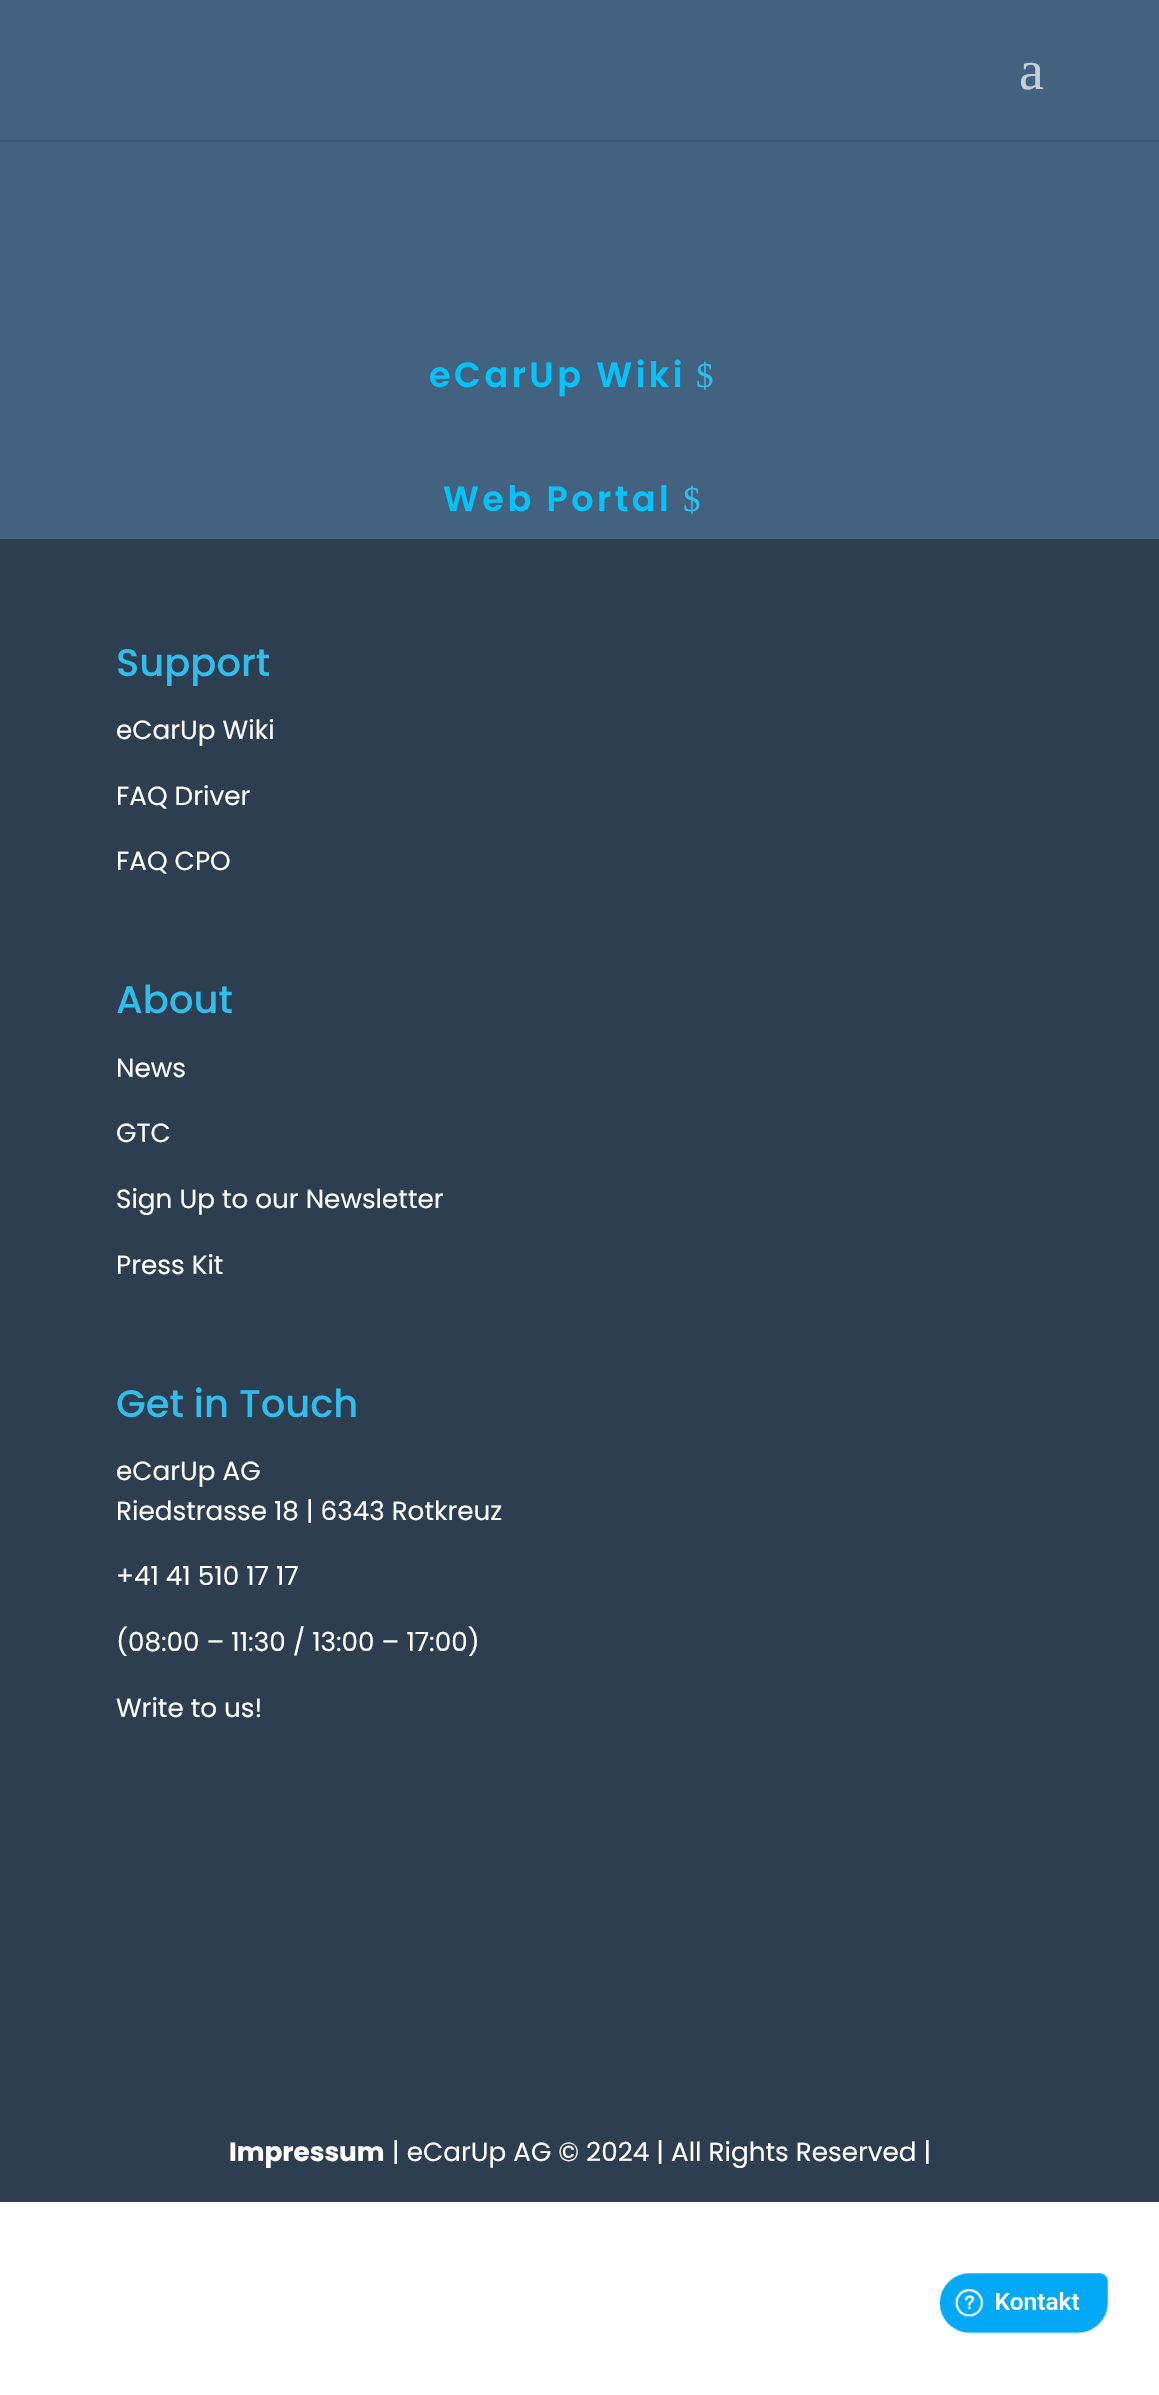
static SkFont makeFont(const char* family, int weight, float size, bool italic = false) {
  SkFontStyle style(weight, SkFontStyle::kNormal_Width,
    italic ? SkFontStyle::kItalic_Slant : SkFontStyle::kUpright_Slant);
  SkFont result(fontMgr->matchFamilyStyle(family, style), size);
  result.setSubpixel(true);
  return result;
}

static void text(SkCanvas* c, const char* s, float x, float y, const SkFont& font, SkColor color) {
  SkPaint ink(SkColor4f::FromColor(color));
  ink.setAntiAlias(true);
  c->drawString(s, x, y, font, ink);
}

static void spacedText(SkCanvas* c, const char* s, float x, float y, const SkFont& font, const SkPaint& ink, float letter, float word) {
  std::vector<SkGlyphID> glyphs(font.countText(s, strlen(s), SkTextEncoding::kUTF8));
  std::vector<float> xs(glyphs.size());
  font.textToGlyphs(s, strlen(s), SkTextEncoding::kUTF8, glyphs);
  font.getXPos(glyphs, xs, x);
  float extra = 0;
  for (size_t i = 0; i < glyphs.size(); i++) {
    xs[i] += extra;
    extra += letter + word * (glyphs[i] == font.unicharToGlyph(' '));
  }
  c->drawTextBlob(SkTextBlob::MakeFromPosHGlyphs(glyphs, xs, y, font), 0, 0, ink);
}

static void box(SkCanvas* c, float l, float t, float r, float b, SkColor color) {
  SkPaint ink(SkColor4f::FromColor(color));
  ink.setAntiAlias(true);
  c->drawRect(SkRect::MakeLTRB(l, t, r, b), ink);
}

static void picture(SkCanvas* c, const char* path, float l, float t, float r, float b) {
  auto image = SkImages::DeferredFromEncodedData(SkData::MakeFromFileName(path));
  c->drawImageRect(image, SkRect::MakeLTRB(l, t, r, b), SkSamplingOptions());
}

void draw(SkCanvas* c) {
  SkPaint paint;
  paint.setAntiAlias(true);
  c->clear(0xffffffff);
  box(c, 0, 140, 1159, 142, 0xff3c5873);
  box(c, 0, 0, 1159, 140, 0xff436280);
  SkFont face1 = makeFont("Liberation Serif", 400, 56);
  text(c, "a", 1019, 89, face1, 0xffc7d0d9);
  box(c, 0, 142, 1159, 539, 0xff436280);
  SkFont face2 = makeFont("Poppins", 600, 35);
  paint.setColor(0xff05c2f9);
  spacedText(c, "eCarUp Wiki", 429, 387, face2, paint, 3.5f, 0);
  SkFont face3 = makeFont("Liberation Serif", 400, 35);
  paint.setColor(0xff30bdec);
  spacedText(c, "$", 696, 387, face3, paint, 3.5f, 0);
  paint.setColor(0xff05c2f9);
  spacedText(c, "Web Portal", 443, 511, face2, paint, 3.5f, 0);
  paint.setColor(0xff30bdec);
  spacedText(c, "$", 683, 511, face3, paint, 3.5f, 0);
  box(c, 0, 539, 1159, 2202, 0xff2d3e50);
  SkFont face4 = makeFont("Poppins", 500, 38.5f);
  text(c, "Support", 116, 676, face4, 0xff30bdec);
  SkFont face5 = makeFont("Poppins", 400, 26.25f);
  text(c, "eCarUp Wiki", 116, 739, face5, 0xffffffff);
  text(c, "FAQ Driver", 116, 805, face5, 0xffffffff);
  text(c, "FAQ CPO", 116, 870, face5, 0xffffffff);
  text(c, "About", 116, 1013, face4, 0xff30bdec);
  text(c, "News", 116, 1077, face5, 0xffffffff);
  text(c, "GTC", 116, 1142, face5, 0xffffffff);
  text(c, "Sign Up to our Newsletter", 116, 1208, face5, 0xffffffff);
  text(c, "Press Kit", 116, 1274, face5, 0xffffffff);
  text(c, "Get in Touch", 116, 1417, face4, 0xff30bdec);
  text(c, "eCarUp AG", 116, 1480, face5, 0xffffffff);
  text(c, "Riedstrasse 18 | 6343 Rotkreuz", 116, 1520, face5, 0xffffffff);
  text(c, "+41 41 510 17 17", 116, 1585, face5, 0xffffffff);
  text(c, "(08:00 – 11:30 / 13:00 – 17:00)", 116, 1651, face5, 0xffffffff);
  text(c, "Write to us!", 116, 1717, face5, 0xffffffff);
  SkFont face6 = makeFont("Poppins", 700, 26.25f);
  text(c, "Impressum", 229, 2161, face6, 0xffffffff);
  text(c, "| eCarUp AG © 2024 | All Rights Reserved |", 392, 2161, face5, 0xffffffff);
  picture(c, "img_01.png", 939, 2273, 1108, 2334);
}
